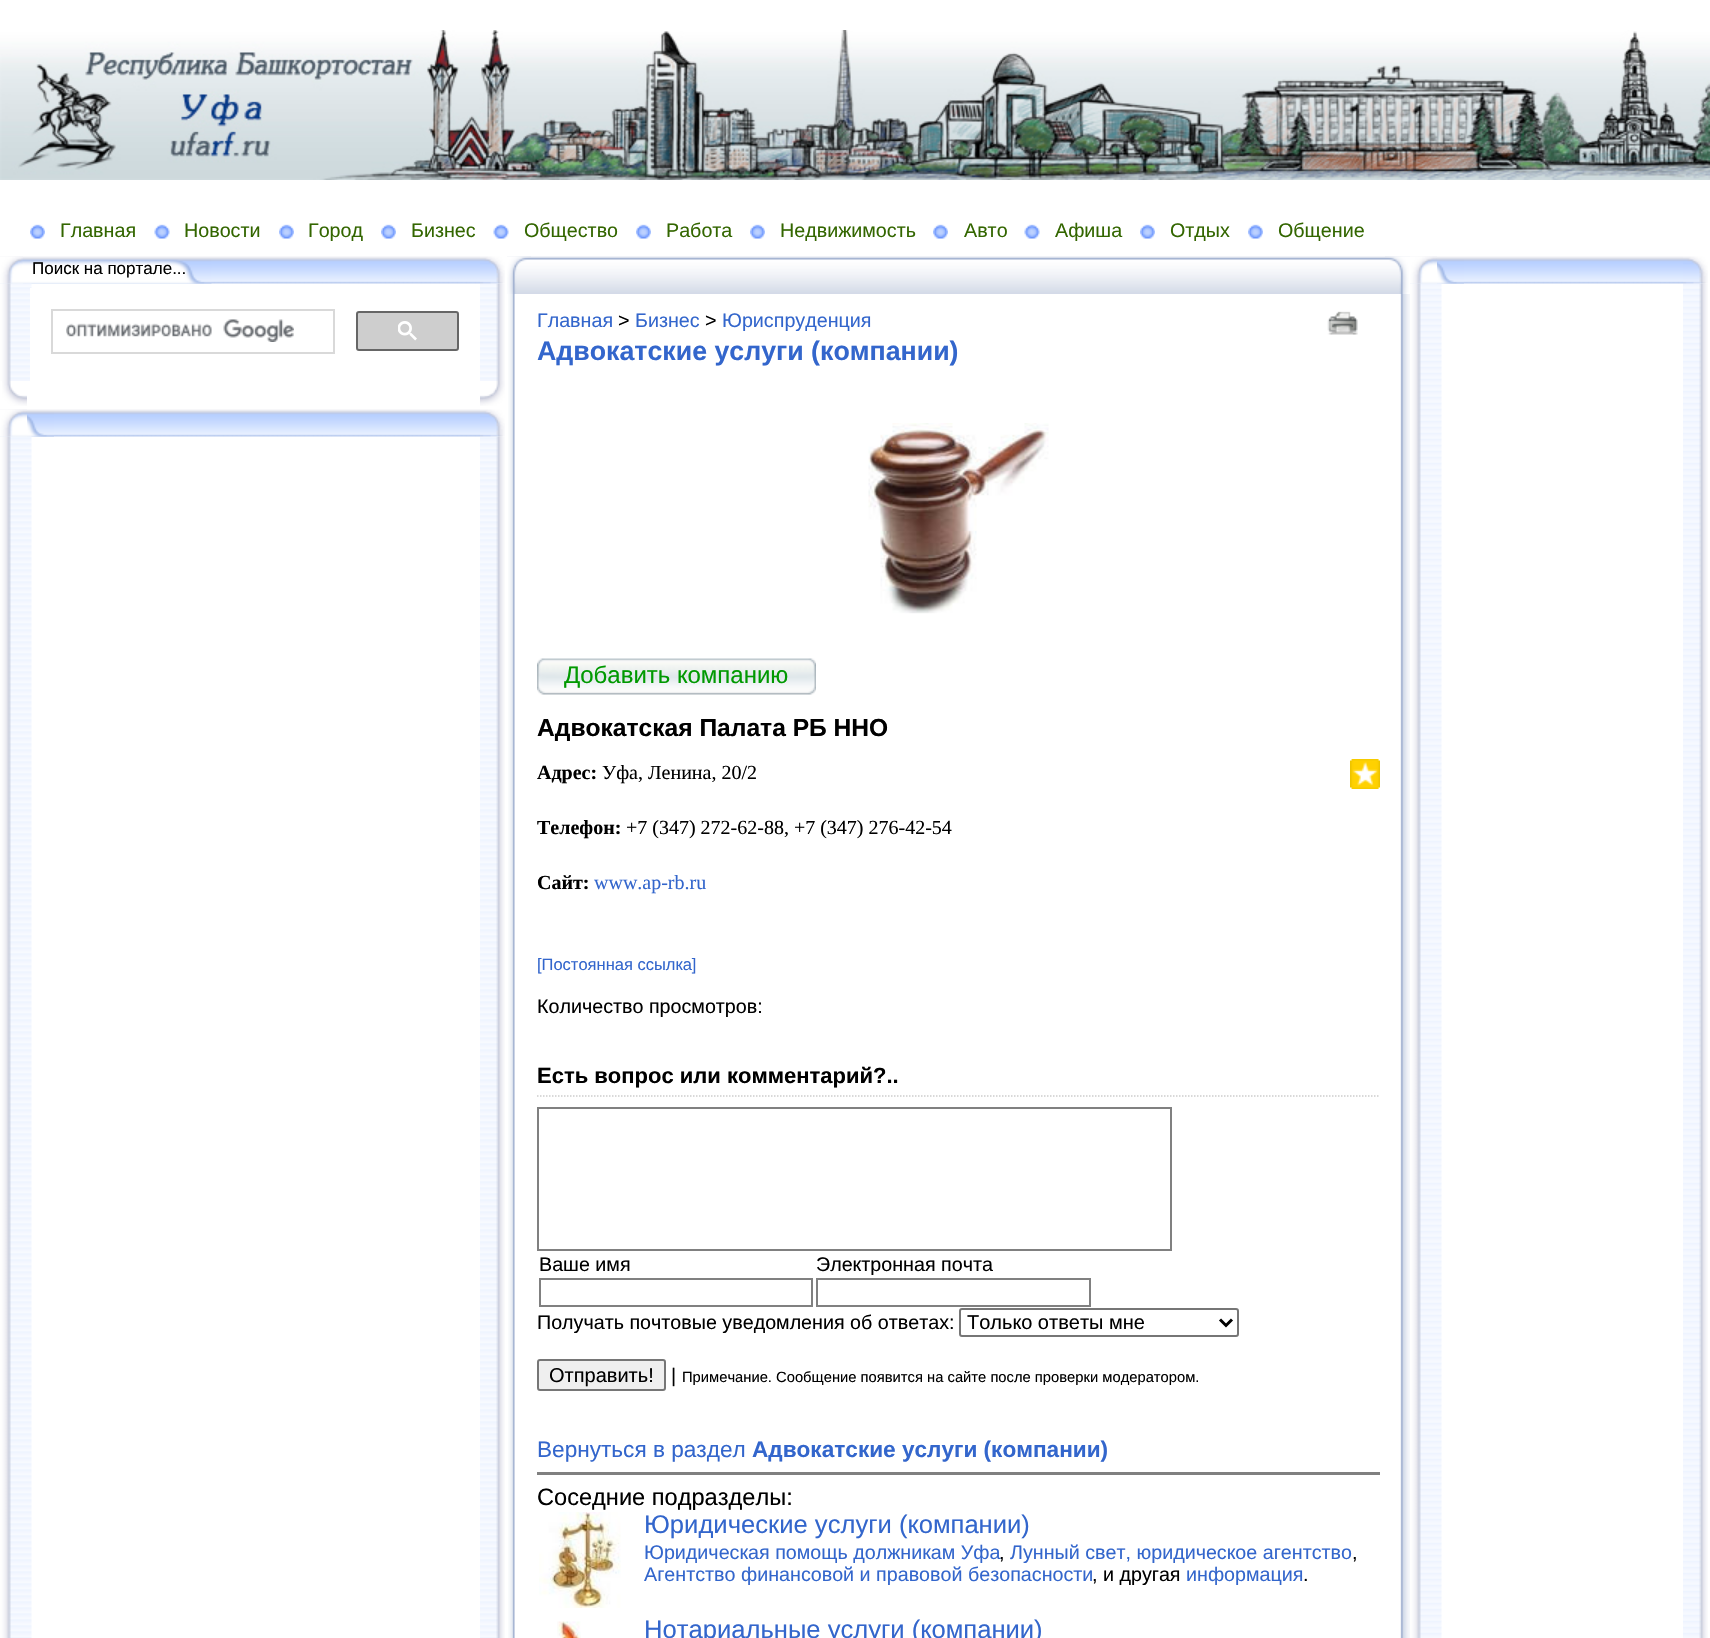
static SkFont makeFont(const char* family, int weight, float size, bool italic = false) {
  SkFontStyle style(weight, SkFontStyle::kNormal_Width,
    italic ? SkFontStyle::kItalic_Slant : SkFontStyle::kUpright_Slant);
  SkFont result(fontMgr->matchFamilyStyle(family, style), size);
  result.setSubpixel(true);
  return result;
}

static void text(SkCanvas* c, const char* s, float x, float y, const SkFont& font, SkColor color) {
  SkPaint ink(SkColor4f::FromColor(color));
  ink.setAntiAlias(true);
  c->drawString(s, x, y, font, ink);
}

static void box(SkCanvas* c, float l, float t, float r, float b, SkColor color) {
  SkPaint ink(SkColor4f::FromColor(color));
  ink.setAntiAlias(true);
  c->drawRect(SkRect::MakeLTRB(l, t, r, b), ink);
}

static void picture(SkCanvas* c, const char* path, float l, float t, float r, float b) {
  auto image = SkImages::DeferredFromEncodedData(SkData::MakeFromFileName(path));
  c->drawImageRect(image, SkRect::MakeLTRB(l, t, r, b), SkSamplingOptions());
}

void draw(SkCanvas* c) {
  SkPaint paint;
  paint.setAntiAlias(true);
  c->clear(0xffffffff);
  picture(c, "img_01.png", 0, 30, 1710, 180);
  picture(c, "img_02.png", 30, 224, 45, 239);
  SkFont face1 = makeFont("Liberation Sans", 400, 19.7f);
  text(c, "Главная", 60, 237, face1, 0xff336600);
  picture(c, "img_03.png", 154, 224, 170, 239);
  text(c, "Новости", 184, 237, face1, 0xff336600);
  picture(c, "img_04.png", 279, 224, 294, 239);
  text(c, "Город", 308, 237, face1, 0xff336600);
  picture(c, "img_04.png", 381, 224, 396, 239);
  text(c, "Бизнес", 411, 237, face1, 0xff336600);
  picture(c, "img_03.png", 493, 224, 509, 239);
  text(c, "Общество", 524, 237, face1, 0xff336600);
  picture(c, "img_02.png", 636, 224, 651, 239);
  text(c, "Работа", 666, 237, face1, 0xff336600);
  picture(c, "img_04.png", 750, 224, 765, 239);
  text(c, "Недвижимость", 780, 237, face1, 0xff336600);
  picture(c, "img_02.png", 933, 224, 948, 239);
  text(c, "Авто", 964, 237, face1, 0xff336600);
  picture(c, "img_05.png", 1024, 224, 1040, 239);
  text(c, "Афиша", 1055, 237, face1, 0xff336600);
  picture(c, "img_04.png", 1140, 224, 1155, 239);
  text(c, "Отдых", 1170, 237, face1, 0xff336600);
  picture(c, "img_04.png", 1248, 224, 1263, 239);
  text(c, "Общение", 1278, 237, face1, 0xff336600);
  picture(c, "img_06.png", 0, 256, 480, 284);
  picture(c, "img_07.png", 0, 259, 212, 284);
  picture(c, "img_10.png", 0, 283, 32, 381);
  picture(c, "img_08.png", 0, 256, 23, 284);
  SkFont face2 = makeFont("Liberation Sans", 400, 17);
  text(c, "Поиск на портале...", 32, 274, face2, 0xff000000);
  picture(c, "img_13.png", 480, 283, 505, 381);
  picture(c, "img_09.png", 480, 256, 505, 284);
  box(c, 30, 288, 32, 381, 0xffffffff);
  paint.setStyle(SkPaint::kStroke_Style);
  paint.setStrokeWidth(2);
  paint.setColor(0xffd9d9d9);
  c->drawRect(SkRect::MakeLTRB(52, 310, 334, 353), paint);
  picture(c, "img_11.png", 66, 319, 294, 342);
  paint.setStyle(SkPaint::kFill_Style);
  paint.setColor(0xffcecece);
  c->drawRoundRect(SkRect::MakeLTRB(357, 312, 458, 350), 2, 2, paint);
  paint.setStyle(SkPaint::kStroke_Style);
  paint.setColor(0xff666666);
  c->drawRoundRect(SkRect::MakeLTRB(357, 312, 458, 350), 2, 2, paint);
  picture(c, "img_12.png", 398, 321, 417, 341);
  picture(c, "img_14.png", 2, 381, 27, 406);
  picture(c, "img_15.png", 480, 381, 505, 406);
  picture(c, "img_16.png", 0, 409, 480, 437);
  picture(c, "img_17.png", 0, 412, 54, 437);
  picture(c, "img_20.png", 0, 436, 32, 1638);
  picture(c, "img_18.png", 0, 409, 27, 437);
  picture(c, "img_21.png", 480, 436, 505, 1638);
  picture(c, "img_19.png", 480, 409, 505, 437);
  picture(c, "img_22.png", 1410, 256, 1683, 284);
  picture(c, "img_17.png", 1410, 259, 1464, 284);
  picture(c, "img_25.png", 1410, 283, 1442, 1638);
  picture(c, "img_23.png", 1410, 256, 1437, 284);
  picture(c, "img_26.png", 1683, 283, 1708, 1638);
  picture(c, "img_24.png", 1683, 256, 1708, 284);
  picture(c, "img_27.png", 507, 256, 1410, 294);
  picture(c, "img_28.png", 1385, 256, 1410, 294);
  picture(c, "img_29.png", 507, 256, 531, 294);
  picture(c, "img_30.png", 508, 294, 515, 1638);
  picture(c, "img_31.png", 1400, 294, 1410, 1638);
  text(c, "Главная", 537, 327, face1, 0xff3366cc);
  text(c, ">", 618, 327, face1, 0xff000000);
  text(c, "Бизнес", 635, 327, face1, 0xff3366cc);
  text(c, ">", 705, 327, face1, 0xff000000);
  text(c, "Юриспруденция", 722, 327, face1, 0xff3366cc);
  SkFont face3 = makeFont("Liberation Sans", 700, 26.75f);
  text(c, "Адвокатские услуги (компании)", 537, 360, face3, 0xff3366cc);
  picture(c, "img_32.png", 868, 423, 1049, 614);
  picture(c, "img_33.png", 789, 658, 816, 695);
  picture(c, "img_34.png", 537, 658, 789, 695);
  SkFont face4 = makeFont("Liberation Sans", 400, 24);
  text(c, "Добавить компанию", 564, 683, face4, 0xff009900);
  picture(c, "img_35.png", 1327, 311, 1358, 335);
  SkFont face5 = makeFont("Liberation Sans", 700, 24.6f);
  text(c, "Адвокатская Палата РБ ННО", 537, 736, face5, 0xff000000);
  SkFont face6 = makeFont("Liberation Serif", 700, 20);
  text(c, "Адрес:", 537, 779, face6, 0xff000000);
  SkFont face7 = makeFont("Liberation Serif", 400, 20);
  text(c, "Уфа, Ленина, 20/2", 602, 779, face7, 0xff000000);
  picture(c, "img_36.png", 1350, 759, 1380, 789);
  text(c, "Телефон:", 537, 834, face6, 0xff000000);
  text(c, "+7 (347) 272-62-88, +7 (347) 276-42-54", 626, 834, face7, 0xff000000);
  text(c, "Сайт:", 537, 889, face6, 0xff000000);
  text(c, "www.ap-rb.ru", 594, 889, face7, 0xff3366cc);
  SkFont face8 = makeFont("Liberation Sans", 400, 16.5f);
  text(c, "[Постоянная ссылка]", 537, 970, face8, 0xff3366cc);
  text(c, "Количество просмотров:", 537, 1013, face1, 0xff000000);
  paint.setStrokeWidth(1.5f);
  paint.setColor(0xffcdcdcd);
  paint.setPathEffect(SkDashPathEffect::Make({{1.5f, 1.5f}}, 0));
  c->drawPath(SkPathBuilder().moveTo(537, 1096).lineTo(1380, 1096).detach(), paint);
  paint.setPathEffect(nullptr);
  SkFont face9 = makeFont("Liberation Sans", 700, 22);
  text(c, "Есть вопрос или комментарий?..", 537, 1083, face9, 0xff000000);
  paint.setStrokeWidth(2);
  paint.setColor(0xff808080);
  c->drawRect(SkRect::MakeLTRB(538, 1108, 1171, 1250), paint);
  text(c, "Ваше имя", 539, 1271, face1, 0xff000000);
  text(c, "Электронная почта", 816, 1271, face1, 0xff000000);
  c->drawRect(SkRect::MakeLTRB(540, 1279, 812, 1306), paint);
  c->drawRect(SkRect::MakeLTRB(817, 1279, 1090, 1306), paint);
  text(c, "Получать почтовые уведомления об ответах:", 537, 1329, face1, 0xff000000);
  paint.setColor(0xff767676);
  c->drawRoundRect(SkRect::MakeLTRB(960, 1309, 1238, 1336), 2, 2, paint);
  paint.setStrokeWidth(3);
  paint.setColor(0xff000000);
  c->drawPath(SkPathBuilder().moveTo(1220, 1319.5f).lineTo(1226, 1325.5f).lineTo(1232, 1319.5f).detach(), paint);
  SkFont face10 = makeFont("Liberation Sans", 400, 20);
  text(c, "Только ответы мне", 967, 1329, face10, 0xff000000);
  paint.setStyle(SkPaint::kFill_Style);
  paint.setColor(0xffefefef);
  c->drawRoundRect(SkRect::MakeLTRB(538, 1360, 665, 1390), 2, 2, paint);
  paint.setStyle(SkPaint::kStroke_Style);
  paint.setStrokeWidth(2);
  paint.setColor(0xff767676);
  c->drawRoundRect(SkRect::MakeLTRB(538, 1360, 665, 1390), 2, 2, paint);
  text(c, "Отправить!", 549, 1382, face10, 0xff000000);
  text(c, "|", 671, 1382, face1, 0xff000000);
  SkFont face11 = makeFont("Liberation Sans", 400, 14.75f);
  text(c, "Примечание. Сообщение появится на сайте после проверки модератором.", 682, 1382, face11, 0xff000000);
  SkFont face12 = makeFont("Liberation Sans", 400, 22.6f);
  text(c, "Вернуться в раздел", 537, 1457, face12, 0xff3366cc);
  SkFont face13 = makeFont("Liberation Sans", 700, 22.6f);
  text(c, "Адвокатские услуги (компании)", 752, 1457, face13, 0xff3366cc);
  box(c, 537, 1472, 1380, 1475, 0xff808080);
  SkFont face14 = makeFont("Liberation Sans", 400, 23.6f);
  text(c, "Соседние подразделы:", 537, 1505, face14, 0xff000000);
  picture(c, "img_37.png", 539, 1512, 621, 1608);
  SkFont face15 = makeFont("Liberation Sans", 400, 25.6f);
  text(c, "Юридические услуги (компании)", 644, 1533, face15, 0xff3366cc);
  text(c, "Юридическая помощь должникам Уфа", 644, 1559, face1, 0xff3366cc);
  text(c, ",", 999, 1559, face1, 0xff000000);
  text(c, "Лунный свет, юридическое агентство", 1010, 1559, face1, 0xff3366cc);
  text(c, ",", 1352, 1559, face1, 0xff000000);
  text(c, "Агентство финансовой и правовой безопасности", 644, 1581, face1, 0xff3366cc);
  text(c, ", и другая", 1092, 1581, face1, 0xff000000);
  text(c, "информация", 1186, 1581, face1, 0xff3366cc);
  text(c, ".", 1303, 1581, face1, 0xff000000);
  picture(c, "img_38.png", 557, 1621, 581, 1638);
  text(c, "Нотариальные услуги (компании)", 644, 1638, face15, 0xff3366cc);
}
